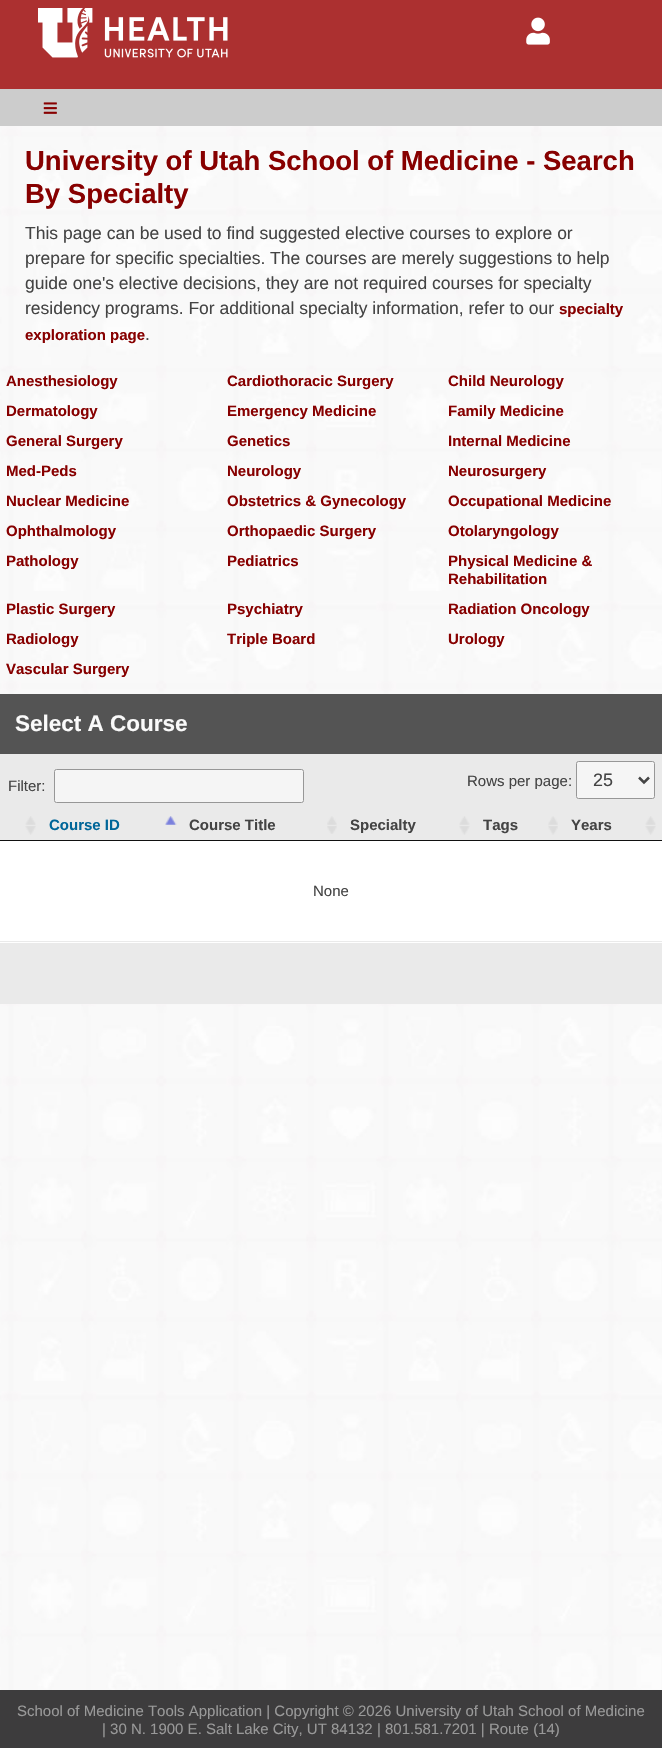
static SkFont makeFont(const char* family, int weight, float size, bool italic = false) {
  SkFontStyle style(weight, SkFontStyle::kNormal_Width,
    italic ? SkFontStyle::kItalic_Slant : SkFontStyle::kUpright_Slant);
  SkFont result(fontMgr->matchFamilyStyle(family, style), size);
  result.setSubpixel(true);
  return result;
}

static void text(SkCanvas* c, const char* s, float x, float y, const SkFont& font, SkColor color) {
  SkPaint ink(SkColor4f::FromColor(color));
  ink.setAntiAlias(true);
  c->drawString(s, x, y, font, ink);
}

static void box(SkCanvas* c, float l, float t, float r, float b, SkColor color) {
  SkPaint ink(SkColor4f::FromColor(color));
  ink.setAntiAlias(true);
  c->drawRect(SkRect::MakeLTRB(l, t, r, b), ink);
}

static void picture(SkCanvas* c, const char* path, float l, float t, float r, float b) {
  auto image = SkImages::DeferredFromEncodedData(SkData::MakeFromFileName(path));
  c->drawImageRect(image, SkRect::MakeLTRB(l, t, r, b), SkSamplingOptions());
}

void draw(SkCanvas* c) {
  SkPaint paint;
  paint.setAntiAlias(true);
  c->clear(0xffffffff);
  picture(c, "img_01.png", 0, 126, 662, 1690);
  box(c, 0, 0, 662, 89, 0xffac3030);
  picture(c, "img_02.png", 38, 8, 228, 58);
  picture(c, "img_03.png", 526, 17, 550, 45);
  box(c, 0, 89, 662, 126, 0xffcccccc);
  picture(c, "img_04.png", 43, 102, 57, 114);
  SkFont face1 = makeFont("Liberation Sans", 700, 27.5f);
  text(c, "University of Utah School of Medicine - Search", 25, 170, face1, 0xff870000);
  text(c, "By Specialty", 25, 203, face1, 0xff870000);
  SkFont face2 = makeFont("Liberation Sans", 400, 17.5f);
  text(c, "This page can be used to find suggested elective courses to explore or", 25, 239, face2, 0xff444444);
  text(c, "prepare for specific specialties. The courses are merely suggestions to help", 25, 264, face2, 0xff444444);
  text(c, "guide one's elective decisions, they are not required courses for specialty", 25, 289, face2, 0xff444444);
  text(c, "residency programs. For additional specialty information, refer to our", 25, 314, face2, 0xff444444);
  SkFont face3 = makeFont("Liberation Sans", 700, 15);
  text(c, "specialty", 559, 314, face3, 0xff870000);
  text(c, "exploration page", 25, 340, face3, 0xff870000);
  text(c, ".", 145, 340, face2, 0xff444444);
  text(c, "Anesthesiology", 6, 386, face3, 0xff870000);
  text(c, "Cardiothoracic Surgery", 227, 386, face3, 0xff870000);
  text(c, "Child Neurology", 448, 386, face3, 0xff870000);
  text(c, "Dermatology", 6, 416, face3, 0xff870000);
  text(c, "Emergency Medicine", 227, 416, face3, 0xff870000);
  text(c, "Family Medicine", 448, 416, face3, 0xff870000);
  text(c, "General Surgery", 6, 446, face3, 0xff870000);
  text(c, "Genetics", 227, 446, face3, 0xff870000);
  text(c, "Internal Medicine", 448, 446, face3, 0xff870000);
  text(c, "Med-Peds", 6, 476, face3, 0xff870000);
  text(c, "Neurology", 227, 476, face3, 0xff870000);
  text(c, "Neurosurgery", 448, 476, face3, 0xff870000);
  text(c, "Nuclear Medicine", 6, 506, face3, 0xff870000);
  text(c, "Obstetrics & Gynecology", 227, 506, face3, 0xff870000);
  text(c, "Occupational Medicine", 448, 506, face3, 0xff870000);
  text(c, "Ophthalmology", 6, 536, face3, 0xff870000);
  text(c, "Orthopaedic Surgery", 227, 536, face3, 0xff870000);
  text(c, "Otolaryngology", 448, 536, face3, 0xff870000);
  text(c, "Pathology", 6, 566, face3, 0xff870000);
  text(c, "Pediatrics", 227, 566, face3, 0xff870000);
  text(c, "Physical Medicine &", 448, 566, face3, 0xff870000);
  text(c, "Rehabilitation", 448, 584, face3, 0xff870000);
  text(c, "Plastic Surgery", 6, 614, face3, 0xff870000);
  text(c, "Psychiatry", 227, 614, face3, 0xff870000);
  text(c, "Radiation Oncology", 448, 614, face3, 0xff870000);
  text(c, "Radiology", 6, 644, face3, 0xff870000);
  text(c, "Triple Board", 227, 644, face3, 0xff870000);
  text(c, "Urology", 448, 644, face3, 0xff870000);
  text(c, "Vascular Surgery", 6, 674, face3, 0xff870000);
  box(c, 0, 694, 662, 754, 0xff545454);
  SkFont face4 = makeFont("Liberation Sans", 700, 22.5f);
  text(c, "Select A Course", 15, 731, face4, 0xfffafafa);
  box(c, 0, 754, 662, 1004, 0xffeaeaea);
  SkFont face5 = makeFont("Liberation Sans", 400, 15);
  text(c, "Filter:", 8, 791, face5, 0xff444444);
  paint.setColor(0xfff5f5f5);
  c->drawRoundRect(SkRect::MakeLTRB(54.5f, 769.5f, 303.5f, 802.5f), 2, 2, paint);
  paint.setStyle(SkPaint::kStroke_Style);
  paint.setStrokeWidth(1);
  paint.setColor(0xff979797);
  c->drawRoundRect(SkRect::MakeLTRB(54.5f, 769.5f, 303.5f, 802.5f), 2, 2, paint);
  text(c, "Rows per page:", 467, 786, face5, 0xff444444);
  paint.setStyle(SkPaint::kFill_Style);
  paint.setColor(0xfff5f5f5);
  c->drawRoundRect(SkRect::MakeLTRB(576.5f, 761.5f, 654.5f, 798.5f), 2, 2, paint);
  paint.setStyle(SkPaint::kStroke_Style);
  paint.setColor(0xff979797);
  c->drawRoundRect(SkRect::MakeLTRB(576.5f, 761.5f, 654.5f, 798.5f), 2, 2, paint);
  paint.setStrokeWidth(2.5f);
  paint.setColor(0xff444444);
  c->drawPath(SkPathBuilder().moveTo(639, 777.5f).lineTo(644, 782.5f).lineTo(649, 777.5f).detach(), paint);
  SkFont face6 = makeFont("Liberation Sans", 400, 18);
  text(c, "25", 593, 786, face6, 0xff444444);
  picture(c, "img_05.png", 25, 816, 36, 835);
  picture(c, "img_06.png", 165, 816, 177, 825);
  text(c, "Course ID", 49, 830, face3, 0xff006699);
  picture(c, "img_07.png", 327, 816, 337, 834);
  text(c, "Course Title", 189, 830, face3, 0xff444444);
  picture(c, "img_08.png", 459, 816, 470, 835);
  text(c, "Specialty", 350, 830, face3, 0xff444444);
  picture(c, "img_09.png", 548, 816, 558, 835);
  text(c, "Tags", 483, 830, face3, 0xff444444);
  picture(c, "img_05.png", 645, 816, 656, 835);
  box(c, 0, 840, 662, 841, 0xff111111);
  text(c, "Years", 571, 830, face3, 0xff444444);
  box(c, 0, 841, 662, 943, 0xffffffff);
  box(c, 0, 941, 662, 942, 0xffeaeaea);
  text(c, "None", 313, 896, face5, 0xff444444);
  box(c, 0, 1690, 662, 1748, 0xff3d3c3d);
  text(c, "School of Medicine Tools Application | Copyright © 2026 University of Utah School of Medicine", 17, 1716, face5, 0xff999999);
  text(c, "| 30 N. 1900 E. Salt Lake City, UT 84132 | 801.581.7201 | Route (14)", 102, 1734, face5, 0xff999999);
}
